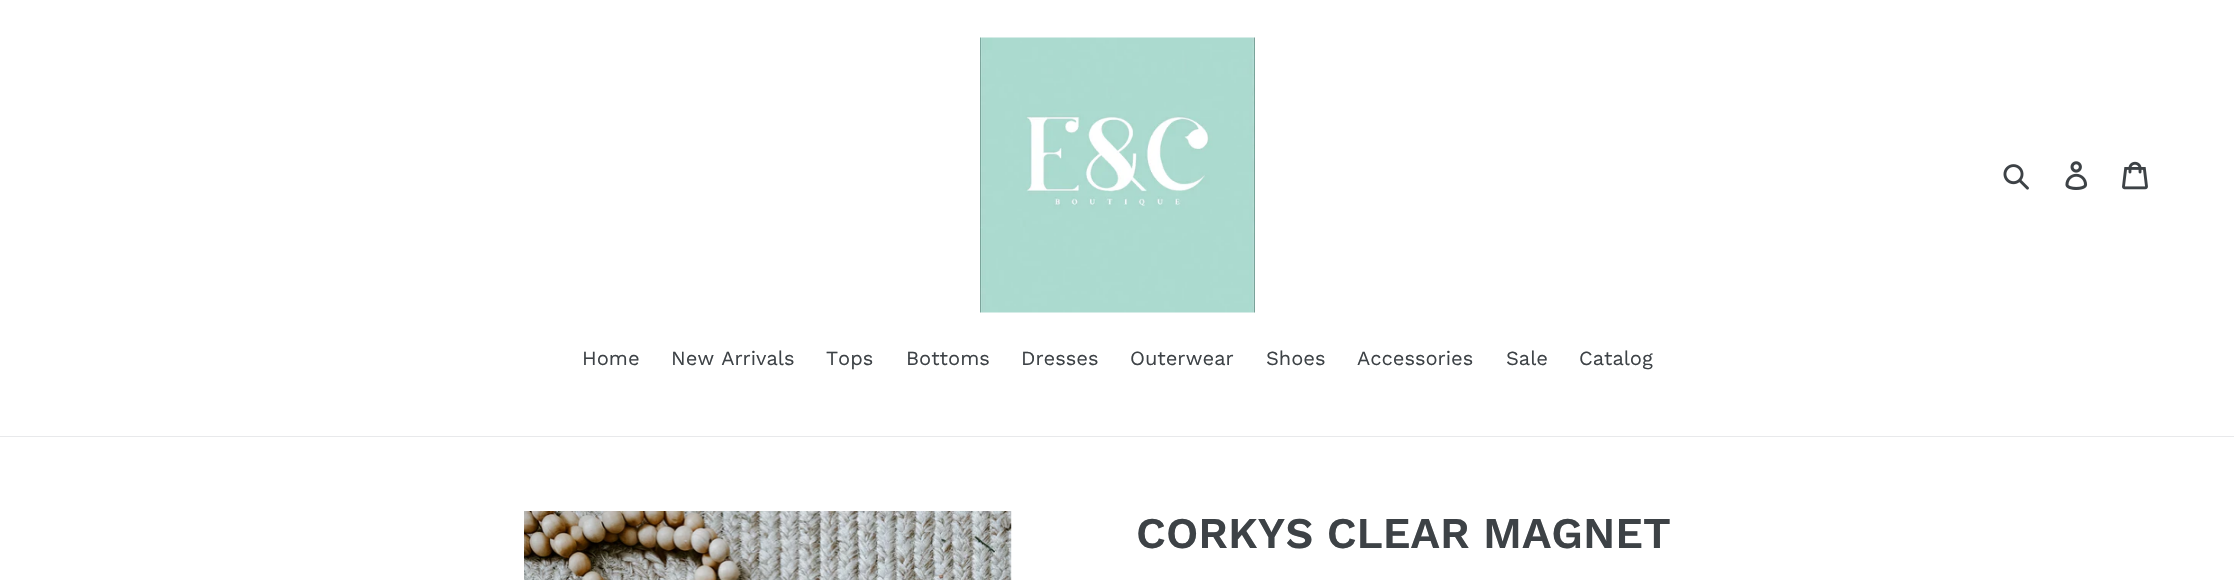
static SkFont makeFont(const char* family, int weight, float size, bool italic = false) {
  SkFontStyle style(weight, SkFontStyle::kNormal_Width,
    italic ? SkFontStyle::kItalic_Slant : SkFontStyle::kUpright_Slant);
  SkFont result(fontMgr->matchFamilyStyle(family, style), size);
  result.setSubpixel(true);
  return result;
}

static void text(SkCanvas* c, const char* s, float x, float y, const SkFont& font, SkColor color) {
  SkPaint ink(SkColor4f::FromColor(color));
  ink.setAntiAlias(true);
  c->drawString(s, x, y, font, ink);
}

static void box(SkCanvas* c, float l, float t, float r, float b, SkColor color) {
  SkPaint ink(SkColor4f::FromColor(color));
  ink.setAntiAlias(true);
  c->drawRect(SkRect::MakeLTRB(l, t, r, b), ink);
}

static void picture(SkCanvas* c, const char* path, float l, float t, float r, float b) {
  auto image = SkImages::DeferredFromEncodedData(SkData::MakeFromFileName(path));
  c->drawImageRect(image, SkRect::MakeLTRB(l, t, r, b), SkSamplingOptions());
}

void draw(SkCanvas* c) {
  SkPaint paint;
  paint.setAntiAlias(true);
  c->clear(0xffffffff);
  picture(c, "img_01.png", 980, 37, 1255, 313);
  picture(c, "img_02.png", 2003, 164, 2029, 190);
  picture(c, "img_03.png", 2065, 161, 2088, 190);
  picture(c, "img_04.png", 2122, 161, 2148, 190);
  box(c, 0, 436, 2234, 437, 0xffe8e9eb);
  SkFont face1 = makeFont("Work Sans", 400, 20);
  text(c, "Home", 582, 365, face1, 0xff3d4246);
  text(c, "New Arrivals", 671, 365, face1, 0xff3d4246);
  text(c, "Tops", 826, 365, face1, 0xff3d4246);
  text(c, "Bottoms", 906, 365, face1, 0xff3d4246);
  text(c, "Dresses", 1021, 365, face1, 0xff3d4246);
  text(c, "Outerwear", 1130, 365, face1, 0xff3d4246);
  text(c, "Shoes", 1266, 365, face1, 0xff3d4246);
  text(c, "Accessories", 1357, 365, face1, 0xff3d4246);
  text(c, "Sale", 1506, 365, face1, 0xff3d4246);
  text(c, "Catalog", 1579, 365, face1, 0xff3d4246);
  picture(c, "img_05.png", 524, 511, 1012, 580);
  SkFont face2 = makeFont("Work Sans", 600, 43.75f);
  text(c, "CORKYS CLEAR MAGNET", 1136, 548, face2, 0xff3d4246);
}
